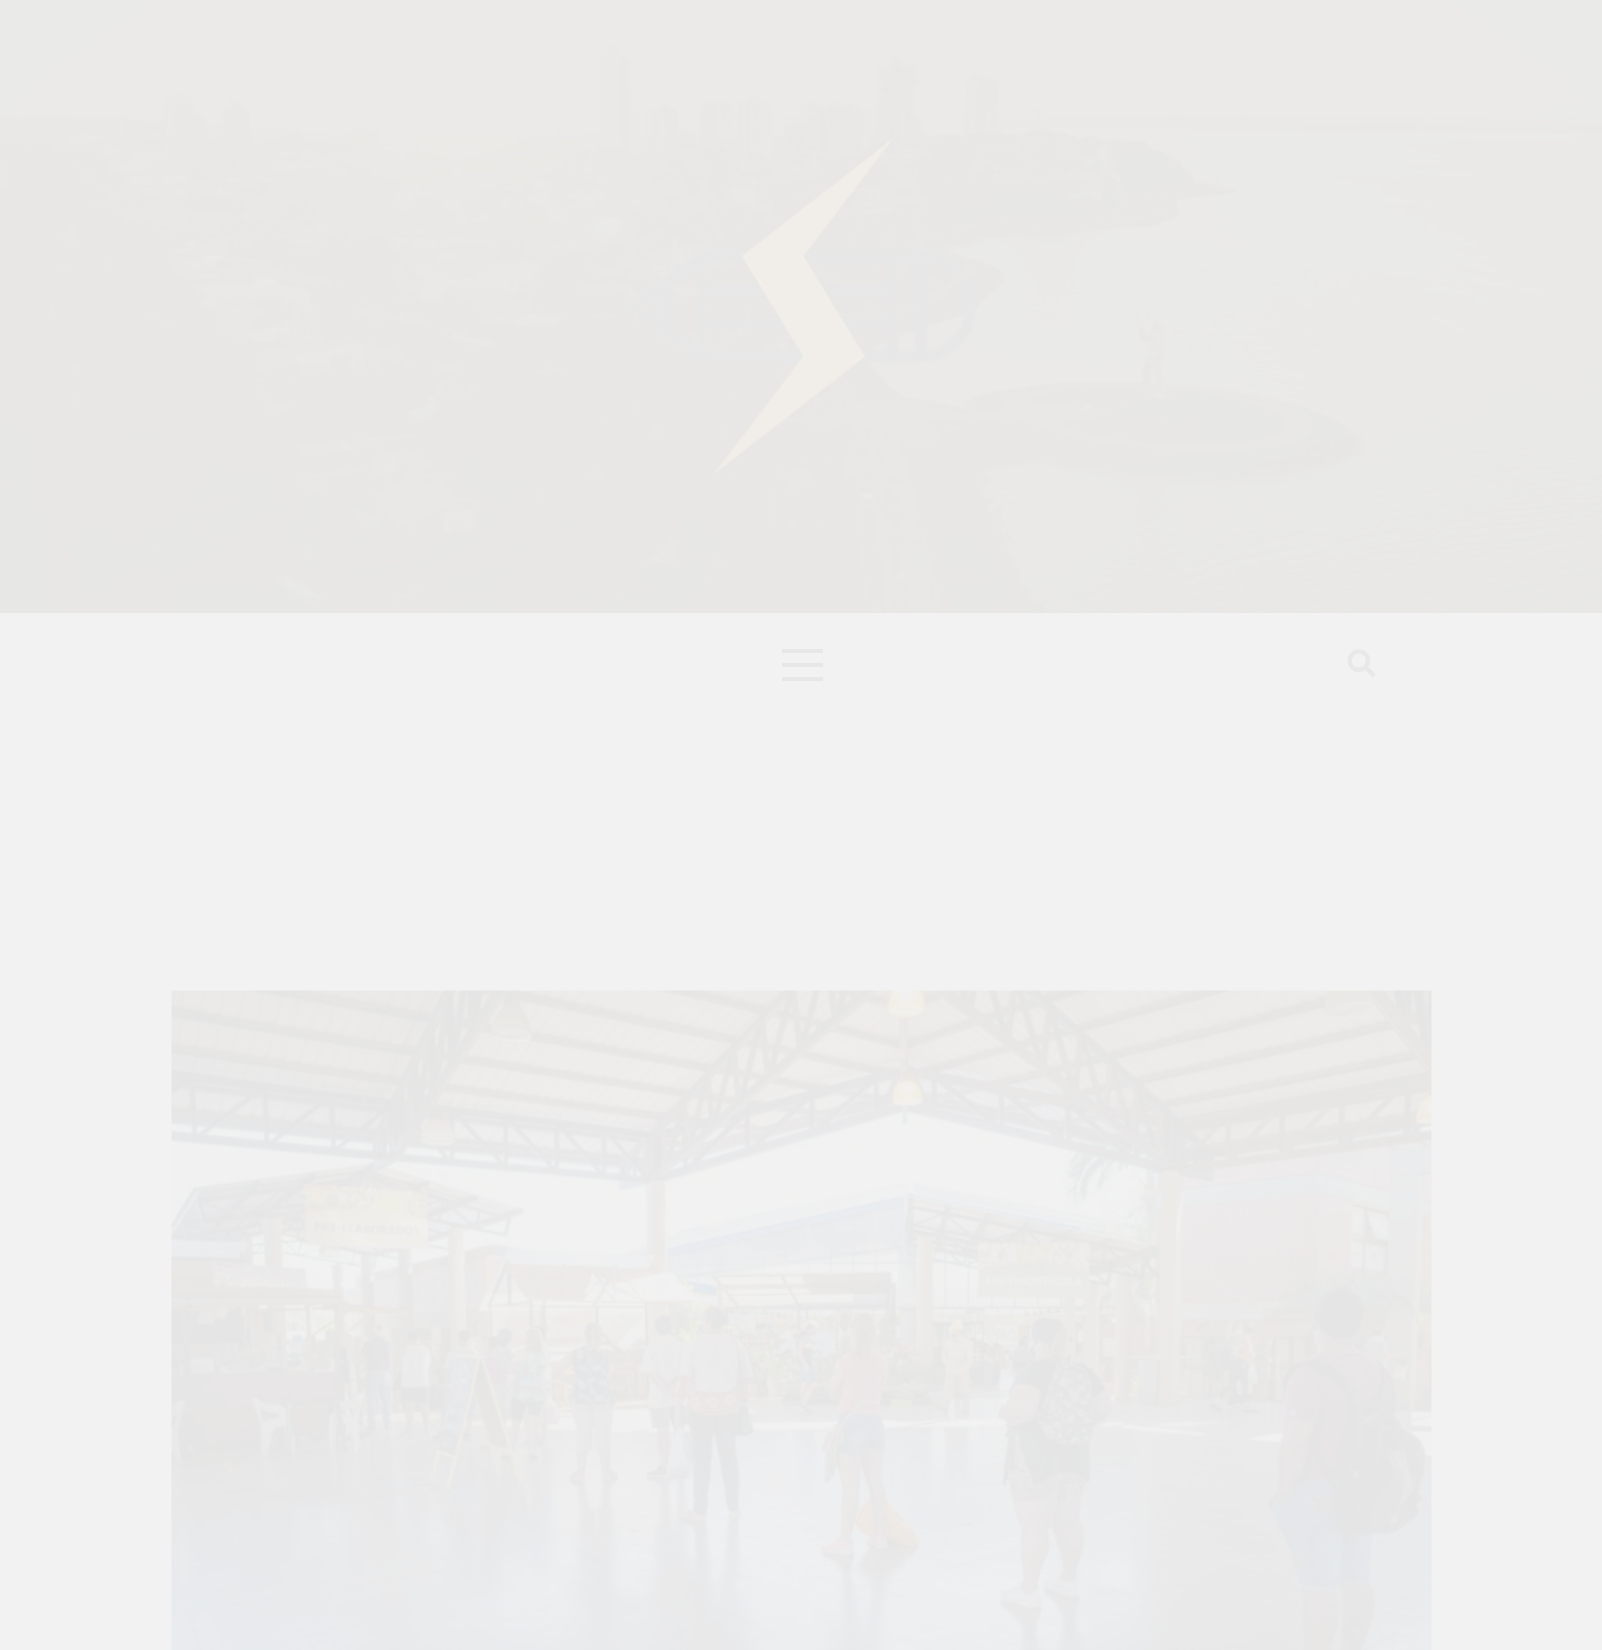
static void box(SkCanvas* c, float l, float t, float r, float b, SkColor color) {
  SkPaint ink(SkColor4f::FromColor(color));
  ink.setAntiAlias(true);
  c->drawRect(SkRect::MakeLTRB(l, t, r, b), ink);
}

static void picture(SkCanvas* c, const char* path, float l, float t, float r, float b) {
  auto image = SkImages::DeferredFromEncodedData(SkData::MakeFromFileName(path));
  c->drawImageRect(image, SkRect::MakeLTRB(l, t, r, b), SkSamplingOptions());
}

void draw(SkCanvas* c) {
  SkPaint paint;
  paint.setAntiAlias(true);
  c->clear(0xfff2f2f2);
  box(c, 0, 612, 1602, 613, 0xffe6e6e6);
  picture(c, "img_01.png", 0, 0, 1602, 613);
  picture(c, "img_02.png", 626, 138, 977, 475);
  box(c, 782, 663, 823, 667, 0xffe7e7e7);
  box(c, 782, 649, 823, 653, 0xffe7e7e7);
  box(c, 782, 677, 823, 681, 0xffe7e7e7);
  picture(c, "img_03.png", 1347, 649, 1376, 678);
  picture(c, "img_04.png", 171, 990, 1432, 1650);
}
